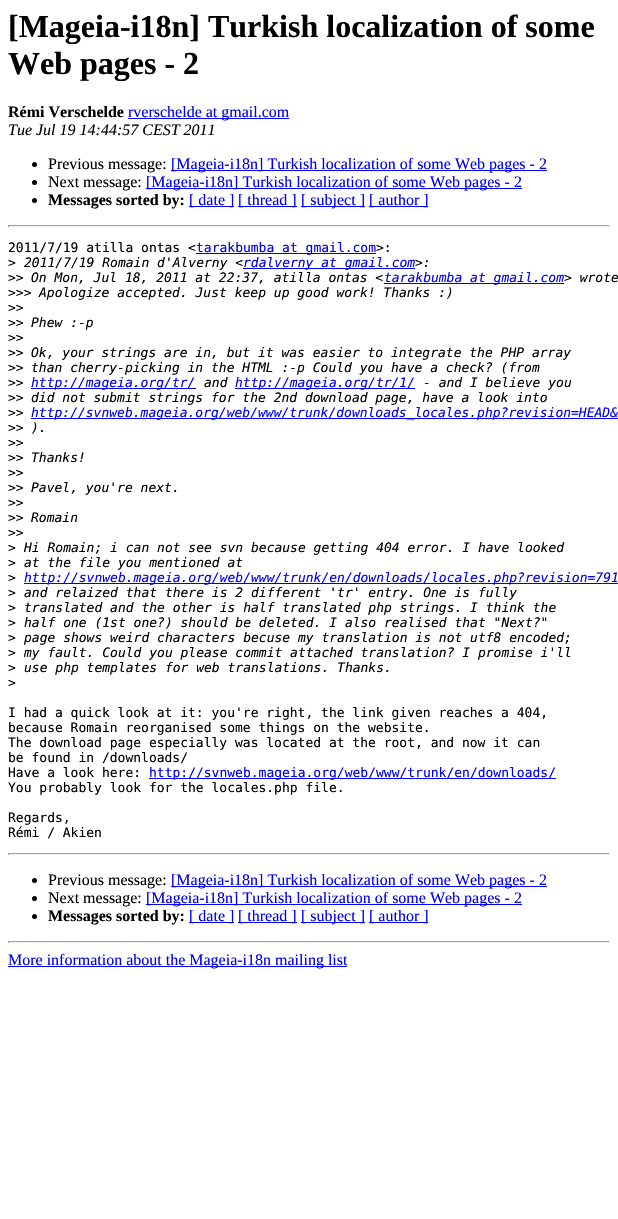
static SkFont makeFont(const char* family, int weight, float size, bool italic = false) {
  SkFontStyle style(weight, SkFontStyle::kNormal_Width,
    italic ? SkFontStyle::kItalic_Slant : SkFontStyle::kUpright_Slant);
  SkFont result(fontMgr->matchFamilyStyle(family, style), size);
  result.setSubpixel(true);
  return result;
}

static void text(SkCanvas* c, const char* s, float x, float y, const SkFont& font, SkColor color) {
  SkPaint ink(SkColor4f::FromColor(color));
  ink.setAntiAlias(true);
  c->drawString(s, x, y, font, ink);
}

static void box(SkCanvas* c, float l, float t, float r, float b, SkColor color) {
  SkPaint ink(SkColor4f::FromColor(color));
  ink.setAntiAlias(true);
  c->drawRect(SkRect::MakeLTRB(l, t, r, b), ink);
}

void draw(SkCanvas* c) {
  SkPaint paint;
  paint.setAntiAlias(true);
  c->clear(0xffffffff);
  SkFont face1 = makeFont("Liberation Serif", 700, 32);
  text(c, "[Mageia-i18n] Turkish localization of some", 8, 37, face1, 0xff000000);
  text(c, "Web pages - 2", 8, 74, face1, 0xff000000);
  SkFont face2 = makeFont("Liberation Serif", 700, 16);
  text(c, "Rémi Verschelde", 8, 117, face2, 0xff000000);
  box(c, 128, 118, 289, 119, 0xff0000ee);
  SkFont face3 = makeFont("Liberation Serif", 400, 16);
  text(c, "rverschelde at gmail.com", 128, 117, face3, 0xff0000ee);
  SkFont face4 = makeFont("Liberation Serif", 400, 16, true);
  text(c, "Tue Jul 19 14:44:57 CEST 2011", 8, 135, face4, 0xff000000);
  paint.setColor(0xff000000);
  c->drawCircle(34.5f, 164.5f, 2.5f, paint);
  text(c, "Previous message:", 48, 169, face3, 0xff000000);
  box(c, 171, 170, 547, 171, 0xff0000ee);
  text(c, "[Mageia-i18n] Turkish localization of some Web pages - 2", 171, 169, face3, 0xff0000ee);
  c->drawCircle(34.5f, 182.5f, 2.5f, paint);
  text(c, "Next message:", 48, 187, face3, 0xff000000);
  box(c, 146, 188, 522, 189, 0xff0000ee);
  text(c, "[Mageia-i18n] Turkish localization of some Web pages - 2", 146, 187, face3, 0xff0000ee);
  c->drawCircle(34.5f, 200.5f, 2.5f, paint);
  text(c, "Messages sorted by:", 48, 205, face2, 0xff000000);
  box(c, 189, 206, 234, 207, 0xff0000ee);
  text(c, "[ date ]", 189, 205, face3, 0xff0000ee);
  box(c, 238, 206, 297, 207, 0xff0000ee);
  text(c, "[ thread ]", 238, 205, face3, 0xff0000ee);
  box(c, 301, 206, 365, 207, 0xff0000ee);
  text(c, "[ subject ]", 301, 205, face3, 0xff0000ee);
  box(c, 369, 206, 428, 207, 0xff0000ee);
  text(c, "[ author ]", 369, 205, face3, 0xff0000ee);
  box(c, 8, 225, 610, 226, 0xff9f9f9f);
  box(c, 609, 225, 610, 227, 0xffeeeeee);
  box(c, 8, 226, 610, 227, 0xffeeeeee);
  box(c, 8, 225, 9, 227, 0xff9f9f9f);
  SkFont face5 = makeFont("DejaVu Sans Mono", 400, 13);
  text(c, "2011/7/19 atilla ontas <", 8, 252, face5, 0xff000000);
  box(c, 196, 253, 376, 254, 0xff0000ee);
  text(c, "tarakbumba at gmail.com", 196, 252, face5, 0xff0000ee);
  text(c, ">:", 376, 252, face5, 0xff000000);
  text(c, ">", 8, 267, face5, 0xff000000);
  SkFont face6 = makeFont("DejaVu Sans Mono", 400, 13, true);
  text(c, "2011/7/19 Romain d'Alverny <", 24, 267, face6, 0xff000000);
  box(c, 243, 268, 415, 269, 0xff0000ee);
  text(c, "rdalverny at gmail.com", 243, 267, face6, 0xff0000ee);
  text(c, ">:", 415, 267, face6, 0xff000000);
  text(c, ">>", 8, 282, face5, 0xff000000);
  text(c, "On Mon, Jul 18, 2011 at 22:37, atilla ontas <", 31, 282, face6, 0xff000000);
  box(c, 384, 283, 564, 284, 0xff0000ee);
  text(c, "tarakbumba at gmail.com", 384, 282, face6, 0xff0000ee);
  text(c, "> wrote", 564, 282, face6, 0xff000000);
  text(c, ">>>", 8, 297, face5, 0xff000000);
  text(c, "Apologize accepted. Just keep up good work! Thanks :)", 39, 297, face6, 0xff000000);
  text(c, ">>", 8, 312, face5, 0xff000000);
  text(c, ">>", 8, 327, face5, 0xff000000);
  text(c, "Phew :-p", 31, 327, face6, 0xff000000);
  text(c, ">>", 8, 342, face5, 0xff000000);
  text(c, ">>", 8, 357, face5, 0xff000000);
  text(c, "Ok, your strings are in, but it was easier to integrate the PHP array", 31, 357, face6, 0xff000000);
  text(c, ">>", 8, 372, face5, 0xff000000);
  text(c, "than cherry-picking in the HTML :-p Could you have a check? (from", 31, 372, face6, 0xff000000);
  text(c, ">>", 8, 387, face5, 0xff000000);
  box(c, 31, 388, 196, 389, 0xff0000ee);
  text(c, "http://mageia.org/tr/", 31, 387, face6, 0xff0000ee);
  text(c, "and", 204, 387, face6, 0xff000000);
  box(c, 235, 388, 415, 389, 0xff0000ee);
  text(c, "http://mageia.org/tr/1/", 235, 387, face6, 0xff0000ee);
  text(c, "- and I believe you", 423, 387, face6, 0xff000000);
  text(c, ">>", 8, 402, face5, 0xff000000);
  text(c, "did not submit strings for the 2nd download page, have a look into", 31, 402, face6, 0xff000000);
  text(c, ">>", 8, 417, face5, 0xff000000);
  box(c, 31, 418, 618, 419, 0xff0000ee);
  text(c, "http://svnweb.mageia.org/web/www/trunk/downloads_locales.php?revision=HEAD&", 31, 417, face6, 0xff0000ee);
  text(c, ">>", 8, 432, face5, 0xff000000);
  text(c, ").", 31, 432, face6, 0xff000000);
  text(c, ">>", 8, 447, face5, 0xff000000);
  text(c, ">>", 8, 462, face5, 0xff000000);
  text(c, "Thanks!", 31, 462, face6, 0xff000000);
  text(c, ">>", 8, 477, face5, 0xff000000);
  text(c, ">>", 8, 492, face5, 0xff000000);
  text(c, "Pavel, you're next.", 31, 492, face6, 0xff000000);
  text(c, ">>", 8, 507, face5, 0xff000000);
  text(c, ">>", 8, 522, face5, 0xff000000);
  text(c, "Romain", 31, 522, face6, 0xff000000);
  text(c, ">>", 8, 537, face5, 0xff000000);
  text(c, ">", 8, 552, face5, 0xff000000);
  text(c, "Hi Romain; i can not see svn because getting 404 error. I have looked", 24, 552, face6, 0xff000000);
  text(c, ">", 8, 567, face5, 0xff000000);
  text(c, "at the file you mentioned at", 24, 567, face6, 0xff000000);
  text(c, ">", 8, 582, face5, 0xff000000);
  box(c, 24, 583, 618, 584, 0xff0000ee);
  text(c, "http://svnweb.mageia.org/web/www/trunk/en/downloads/locales.php?revision=791", 24, 582, face6, 0xff0000ee);
  text(c, ">", 8, 597, face5, 0xff000000);
  text(c, "and relaized that there is 2 different 'tr' entry. One is fully", 24, 597, face6, 0xff000000);
  text(c, ">", 8, 612, face5, 0xff000000);
  text(c, "translated and the other is half translated php strings. I think the", 24, 612, face6, 0xff000000);
  text(c, ">", 8, 627, face5, 0xff000000);
  text(c, "half one (1st one?) should be deleted. I also realised that \"Next?\"", 24, 627, face6, 0xff000000);
  text(c, ">", 8, 642, face5, 0xff000000);
  text(c, "page shows weird characters becuse my translation is not utf8 encoded;", 24, 642, face6, 0xff000000);
  text(c, ">", 8, 657, face5, 0xff000000);
  text(c, "my fault. Could you please commit attached translation? I promise i'll", 24, 657, face6, 0xff000000);
  text(c, ">", 8, 672, face5, 0xff000000);
  text(c, "use php templates for web translations. Thanks.", 24, 672, face6, 0xff000000);
  text(c, ">", 8, 687, face5, 0xff000000);
  text(c, "I had a quick look at it: you're right, the link given reaches a 404,", 8, 717, face5, 0xff000000);
  text(c, "because Romain reorganised some things on the website.", 8, 732, face5, 0xff000000);
  text(c, "The download page especially was located at the root, and now it can", 8, 747, face5, 0xff000000);
  text(c, "be found in /downloads/", 8, 762, face5, 0xff000000);
  text(c, "Have a look here:", 8, 777, face5, 0xff000000);
  box(c, 149, 778, 556, 779, 0xff0000ee);
  text(c, "http://svnweb.mageia.org/web/www/trunk/en/downloads/", 149, 777, face5, 0xff0000ee);
  text(c, "You probably look for the locales.php file.", 8, 792, face5, 0xff000000);
  text(c, "Regards,", 8, 822, face5, 0xff000000);
  text(c, "Rémi / Akien", 8, 837, face5, 0xff000000);
  box(c, 8, 853, 610, 854, 0xff9f9f9f);
  box(c, 609, 853, 610, 855, 0xffeeeeee);
  box(c, 8, 854, 610, 855, 0xffeeeeee);
  box(c, 8, 853, 9, 855, 0xff9f9f9f);
  c->drawCircle(34.5f, 880.5f, 2.5f, paint);
  text(c, "Previous message:", 48, 885, face3, 0xff000000);
  box(c, 171, 886, 547, 887, 0xff0000ee);
  text(c, "[Mageia-i18n] Turkish localization of some Web pages - 2", 171, 885, face3, 0xff0000ee);
  c->drawCircle(34.5f, 898.5f, 2.5f, paint);
  text(c, "Next message:", 48, 903, face3, 0xff000000);
  box(c, 146, 904, 522, 905, 0xff0000ee);
  text(c, "[Mageia-i18n] Turkish localization of some Web pages - 2", 146, 903, face3, 0xff0000ee);
  c->drawCircle(34.5f, 916.5f, 2.5f, paint);
  text(c, "Messages sorted by:", 48, 921, face2, 0xff000000);
  box(c, 189, 922, 234, 923, 0xff0000ee);
  text(c, "[ date ]", 189, 921, face3, 0xff0000ee);
  box(c, 238, 922, 297, 923, 0xff0000ee);
  text(c, "[ thread ]", 238, 921, face3, 0xff0000ee);
  box(c, 301, 922, 365, 923, 0xff0000ee);
  text(c, "[ subject ]", 301, 921, face3, 0xff0000ee);
  box(c, 369, 922, 428, 923, 0xff0000ee);
  text(c, "[ author ]", 369, 921, face3, 0xff0000ee);
  box(c, 8, 941, 610, 942, 0xff9f9f9f);
  box(c, 609, 941, 610, 943, 0xffeeeeee);
  box(c, 8, 942, 610, 943, 0xffeeeeee);
  box(c, 8, 941, 9, 943, 0xff9f9f9f);
  box(c, 8, 966, 347, 967, 0xff0000ee);
  text(c, "More information about the Mageia-i18n mailing list", 8, 965, face3, 0xff0000ee);
}
